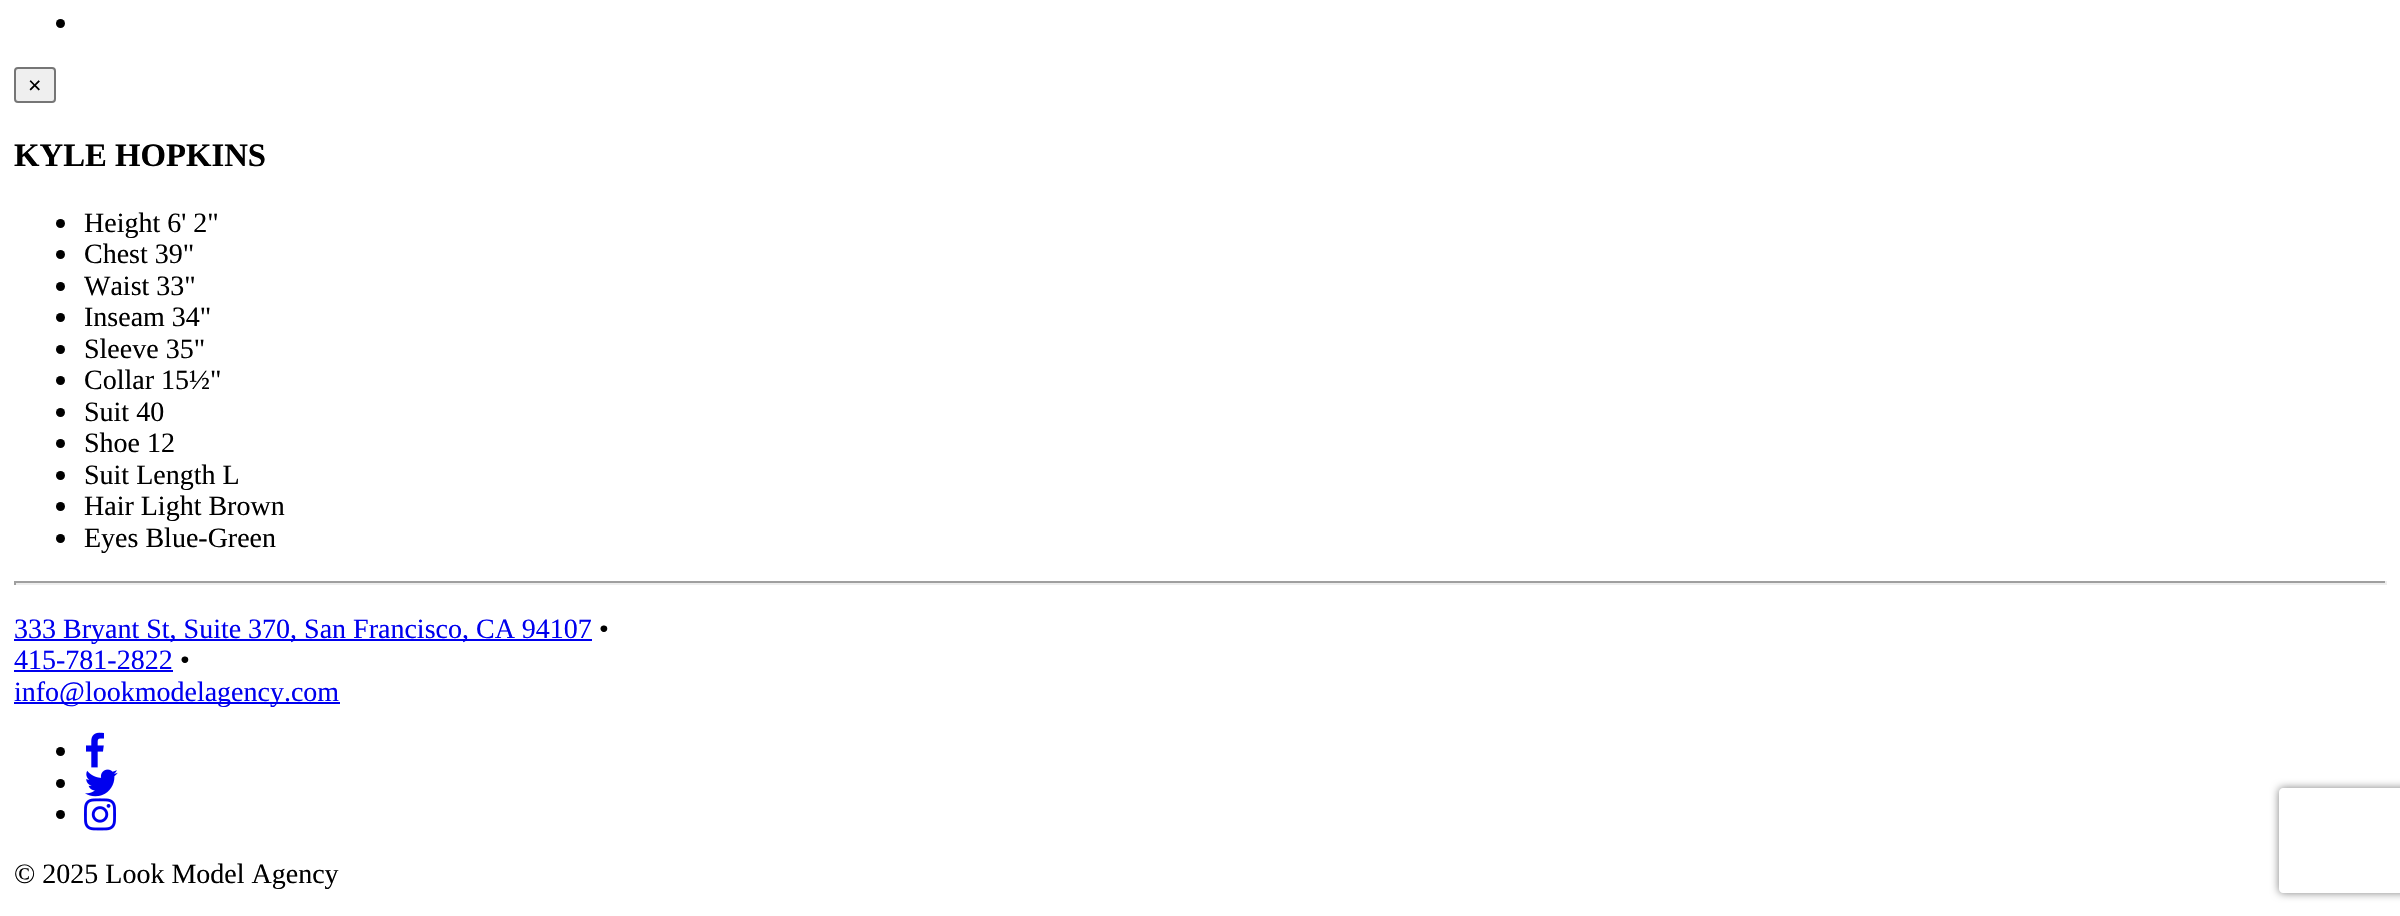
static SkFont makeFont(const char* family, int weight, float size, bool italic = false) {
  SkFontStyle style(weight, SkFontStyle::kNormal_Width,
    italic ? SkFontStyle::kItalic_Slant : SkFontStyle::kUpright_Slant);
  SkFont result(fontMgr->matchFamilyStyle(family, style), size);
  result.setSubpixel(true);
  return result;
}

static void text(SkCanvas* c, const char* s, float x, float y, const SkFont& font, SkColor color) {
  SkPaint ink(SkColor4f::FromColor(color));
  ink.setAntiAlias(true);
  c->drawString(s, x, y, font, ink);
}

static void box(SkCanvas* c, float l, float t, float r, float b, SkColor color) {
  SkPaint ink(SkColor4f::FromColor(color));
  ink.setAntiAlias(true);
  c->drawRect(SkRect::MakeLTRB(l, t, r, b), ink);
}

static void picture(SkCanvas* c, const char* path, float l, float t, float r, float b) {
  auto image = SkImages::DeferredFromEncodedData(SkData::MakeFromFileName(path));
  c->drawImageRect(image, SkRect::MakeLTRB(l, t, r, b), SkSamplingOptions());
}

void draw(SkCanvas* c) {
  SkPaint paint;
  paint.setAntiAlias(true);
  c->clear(0xffffffff);
  paint.setColor(0xff000000);
  c->drawCircle(60.5f, 23.5f, 4.5f, paint);
  paint.setColor(0xffefefef);
  c->drawRoundRect(SkRect::MakeLTRB(15, 68, 55, 102), 3, 3, paint);
  paint.setStyle(SkPaint::kStroke_Style);
  paint.setStrokeWidth(2);
  paint.setColor(0xff767676);
  c->drawRoundRect(SkRect::MakeLTRB(15, 68, 55, 102), 3, 3, paint);
  SkFont face1 = makeFont("Liberation Sans", 400, 23);
  text(c, "×", 28, 93, face1, 0xff000000);
  SkFont face2 = makeFont("Liberation Serif", 700, 32.75f);
  text(c, "KYLE HOPKINS", 14, 166, face2, 0xff000000);
  paint.setStyle(SkPaint::kFill_Style);
  paint.setColor(0xff000000);
  c->drawCircle(60.5f, 223.5f, 4.5f, paint);
  SkFont face3 = makeFont("Liberation Serif", 400, 28);
  text(c, "Height 6' 2\"", 84, 232, face3, 0xff000000);
  c->drawCircle(60.5f, 254.5f, 4.5f, paint);
  text(c, "Chest 39\"", 84, 263, face3, 0xff000000);
  c->drawCircle(60.5f, 286.5f, 4.5f, paint);
  text(c, "Waist 33\"", 84, 295, face3, 0xff000000);
  c->drawCircle(60.5f, 317.5f, 4.5f, paint);
  text(c, "Inseam 34\"", 84, 326, face3, 0xff000000);
  c->drawCircle(60.5f, 349.5f, 4.5f, paint);
  text(c, "Sleeve 35\"", 84, 358, face3, 0xff000000);
  c->drawCircle(60.5f, 380.5f, 4.5f, paint);
  text(c, "Collar 15½\"", 84, 389, face3, 0xff000000);
  c->drawCircle(60.5f, 412.5f, 4.5f, paint);
  text(c, "Suit 40", 84, 421, face3, 0xff000000);
  c->drawCircle(60.5f, 443.5f, 4.5f, paint);
  text(c, "Shoe 12", 84, 452, face3, 0xff000000);
  c->drawCircle(60.5f, 475.5f, 4.5f, paint);
  text(c, "Suit Length L", 84, 484, face3, 0xff000000);
  c->drawCircle(60.5f, 506.5f, 4.5f, paint);
  text(c, "Hair Light Brown", 84, 515, face3, 0xff000000);
  c->drawCircle(60.5f, 538.5f, 4.5f, paint);
  text(c, "Eyes Blue-Green", 84, 547, face3, 0xff000000);
  box(c, 14, 581, 2387, 583, 0xff9f9f9f);
  box(c, 2385, 581, 2387, 585, 0xffeeeeee);
  box(c, 14, 583, 2387, 585, 0xffeeeeee);
  box(c, 14, 581, 16, 585, 0xff9f9f9f);
  box(c, 14, 639, 592, 641, 0xff0000ee);
  text(c, "333 Bryant St, Suite 370, San Francisco, CA 94107", 14, 638, face3, 0xff0000ee);
  text(c, "•", 599, 638, face3, 0xff000000);
  text(c, "415-781-2822", 14, 669, face3, 0xff0000ee);
  box(c, 14, 670, 173, 672, 0xff0000ee);
  text(c, "•", 180, 669, face3, 0xff000000);
  box(c, 14, 702, 340, 704, 0xff0000ee);
  text(c, "info@lookmodelagency.com", 14, 701, face3, 0xff0000ee);
  c->drawCircle(60.5f, 751.5f, 4.5f, paint);
  picture(c, "img_01.png", 86, 732, 104, 768);
  c->drawCircle(60.5f, 783.5f, 4.5f, paint);
  picture(c, "img_02.png", 85, 769, 118, 797);
  c->drawCircle(60.5f, 814.5f, 4.5f, paint);
  picture(c, "img_03.png", 84, 798, 116, 831);
  text(c, "© 2025 Look Model Agency", 14, 883, face3, 0xff000000);
  c->save();
  c->clipPath(SkPathBuilder(SkPathFillType::kEvenOdd).moveTo(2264, 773).lineTo(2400, 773).lineTo(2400, 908).lineTo(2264, 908).close().moveTo(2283, 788).lineTo(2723, 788).cubicTo(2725, 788, 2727, 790, 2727, 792).lineTo(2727, 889).cubicTo(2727, 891, 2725, 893, 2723, 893).lineTo(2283, 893).cubicTo(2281, 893, 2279, 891, 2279, 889).lineTo(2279, 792).cubicTo(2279, 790, 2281, 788, 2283, 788).close().detach(), true);
  paint.setColor(0xff808080);
  paint.setMaskFilter(SkMaskFilter::MakeBlur(kNormal_SkBlurStyle, 4.5f));
  c->drawRoundRect(SkRect::MakeLTRB(2279, 788, 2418, 893), 4, 4, paint);
  paint.setMaskFilter(nullptr);
  c->restore();
}
